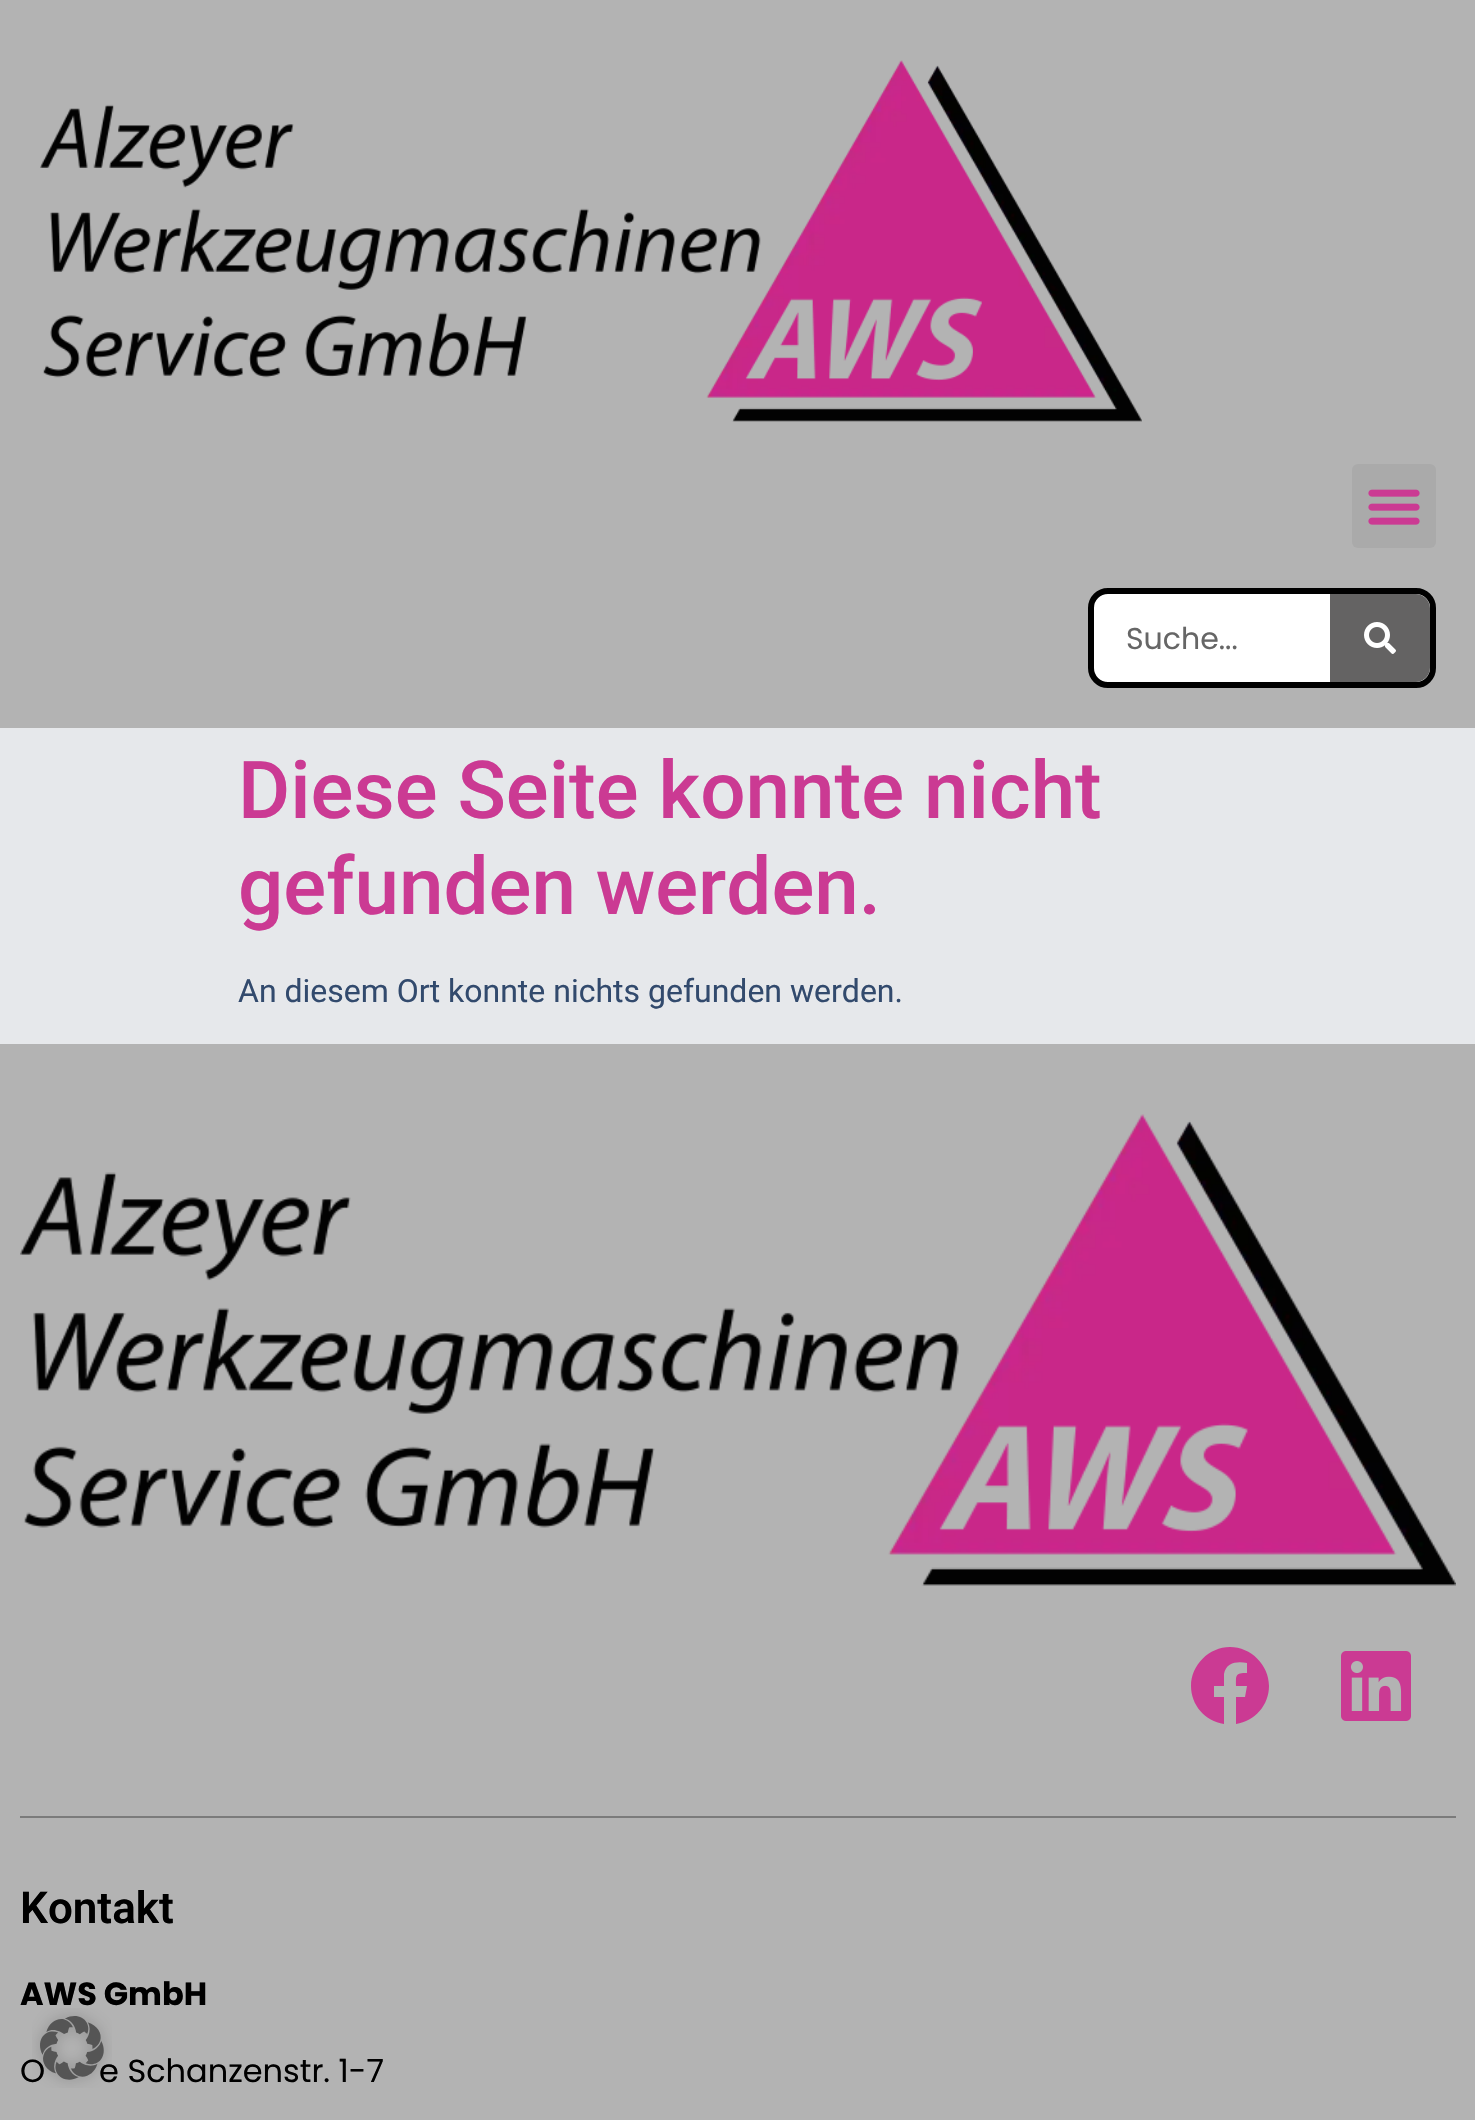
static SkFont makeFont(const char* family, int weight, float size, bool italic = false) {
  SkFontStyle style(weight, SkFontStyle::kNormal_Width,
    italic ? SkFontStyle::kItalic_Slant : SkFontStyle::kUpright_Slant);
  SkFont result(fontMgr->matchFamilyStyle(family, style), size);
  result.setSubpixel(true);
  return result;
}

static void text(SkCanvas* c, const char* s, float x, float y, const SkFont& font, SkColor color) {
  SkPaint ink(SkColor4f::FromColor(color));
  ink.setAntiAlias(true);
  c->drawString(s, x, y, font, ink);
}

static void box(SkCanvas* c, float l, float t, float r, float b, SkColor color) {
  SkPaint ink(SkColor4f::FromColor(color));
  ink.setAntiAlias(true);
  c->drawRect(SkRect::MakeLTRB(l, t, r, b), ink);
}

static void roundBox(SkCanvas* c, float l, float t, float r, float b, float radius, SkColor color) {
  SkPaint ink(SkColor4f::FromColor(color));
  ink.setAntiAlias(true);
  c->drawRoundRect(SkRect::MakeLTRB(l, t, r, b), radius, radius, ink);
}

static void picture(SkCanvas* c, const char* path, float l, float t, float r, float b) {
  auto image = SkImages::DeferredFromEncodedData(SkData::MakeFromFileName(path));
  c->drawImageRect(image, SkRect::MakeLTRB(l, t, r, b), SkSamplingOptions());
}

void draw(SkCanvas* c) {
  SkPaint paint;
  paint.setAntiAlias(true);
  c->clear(0xffe6e8eb);
  box(c, 0, 0, 1475, 728, 0xffb3b3b3);
  picture(c, "img_01.png", 40, 60, 1142, 422);
  roundBox(c, 1352, 464, 1436, 548, 6, 0xffaaaaaa);
  picture(c, "img_02.png", 1368, 489, 1420, 525);
  paint.setColor(0xffffffff);
  c->drawRoundRect(SkRect::MakeLTRB(1091, 591, 1433, 685), 17, 17, paint);
  paint.setStyle(SkPaint::kStroke_Style);
  paint.setStrokeWidth(6);
  paint.setColor(0xff000000);
  c->drawRoundRect(SkRect::MakeLTRB(1091, 591, 1433, 685), 17, 17, paint);
  SkFont face1 = makeFont("Poppins", 400, 30);
  text(c, "Suche...", 1126, 649, face1, 0xff666666);
  paint.setStyle(SkPaint::kFill_Style);
  paint.setColor(0xff646363);
  c->drawPath(SkPathBuilder().moveTo(1330, 594).lineTo(1416, 594).cubicTo(1423.5f, 594, 1430, 600.5f, 1430, 608).lineTo(1430, 668).cubicTo(1430, 675.5f, 1423.5f, 682, 1416, 682).lineTo(1330, 682).close().detach(), paint);
  picture(c, "img_03.png", 1364, 622, 1396, 654);
  SkFont face2 = makeFont("Roboto", 500, 80);
  text(c, "Diese Seite konnte nicht", 238, 818, face2, 0xffcb3a93);
  text(c, "gefunden werden.", 238, 914, face2, 0xffcb3a93);
  SkFont face3 = makeFont("Roboto", 400, 32);
  text(c, "An diesem Ort konnte nichts gefunden werden.", 238, 1002, face3, 0xff324a6d);
  box(c, 0, 1044, 1475, 2120, 0xffb3b3b3);
  picture(c, "img_04.png", 20, 1114, 1456, 1586);
  paint.setColor(0xffcb3a93);
  c->drawPath(SkPathBuilder().moveTo(1269, 1686).cubicTo(1269, 1665, 1251, 1647, 1230, 1647).cubicTo(1209, 1647, 1191, 1665, 1191, 1686).cubicTo(1191, 1705, 1205, 1721, 1224, 1724).lineTo(1224, 1697).lineTo(1214, 1697).lineTo(1214, 1686).lineTo(1224, 1686).lineTo(1224, 1674).cubicTo(1226, 1662, 1238, 1661, 1247, 1663).lineTo(1247, 1673).cubicTo(1235, 1673, 1236, 1675, 1236, 1686).lineTo(1247, 1686).lineTo(1245, 1697).lineTo(1236, 1697).lineTo(1236, 1724).cubicTo(1255, 1721, 1269, 1705, 1269, 1686).close().detach(), paint);
  picture(c, "img_05.png", 1341, 1651, 1411, 1721);
  box(c, 20, 1816, 1456, 1818, 0xff7b7b7b);
  SkFont face4 = makeFont("Roboto", 600, 44);
  text(c, "Kontakt", 20, 1923, face4, 0xff000000);
  SkFont face5 = makeFont("Poppins", 700, 32);
  text(c, "AWS GmbH", 20, 2005, face5, 0xff000000);
  SkFont face6 = makeFont("Poppins", 400, 32);
  text(c, "O", 20, 2082, face6, 0xff000000);
  text(c, "e Schanzenstr. 1-7", 99, 2082, face6, 0xff000000);
  picture(c, "img_06.png", 32, 2008, 112, 2088);
}
